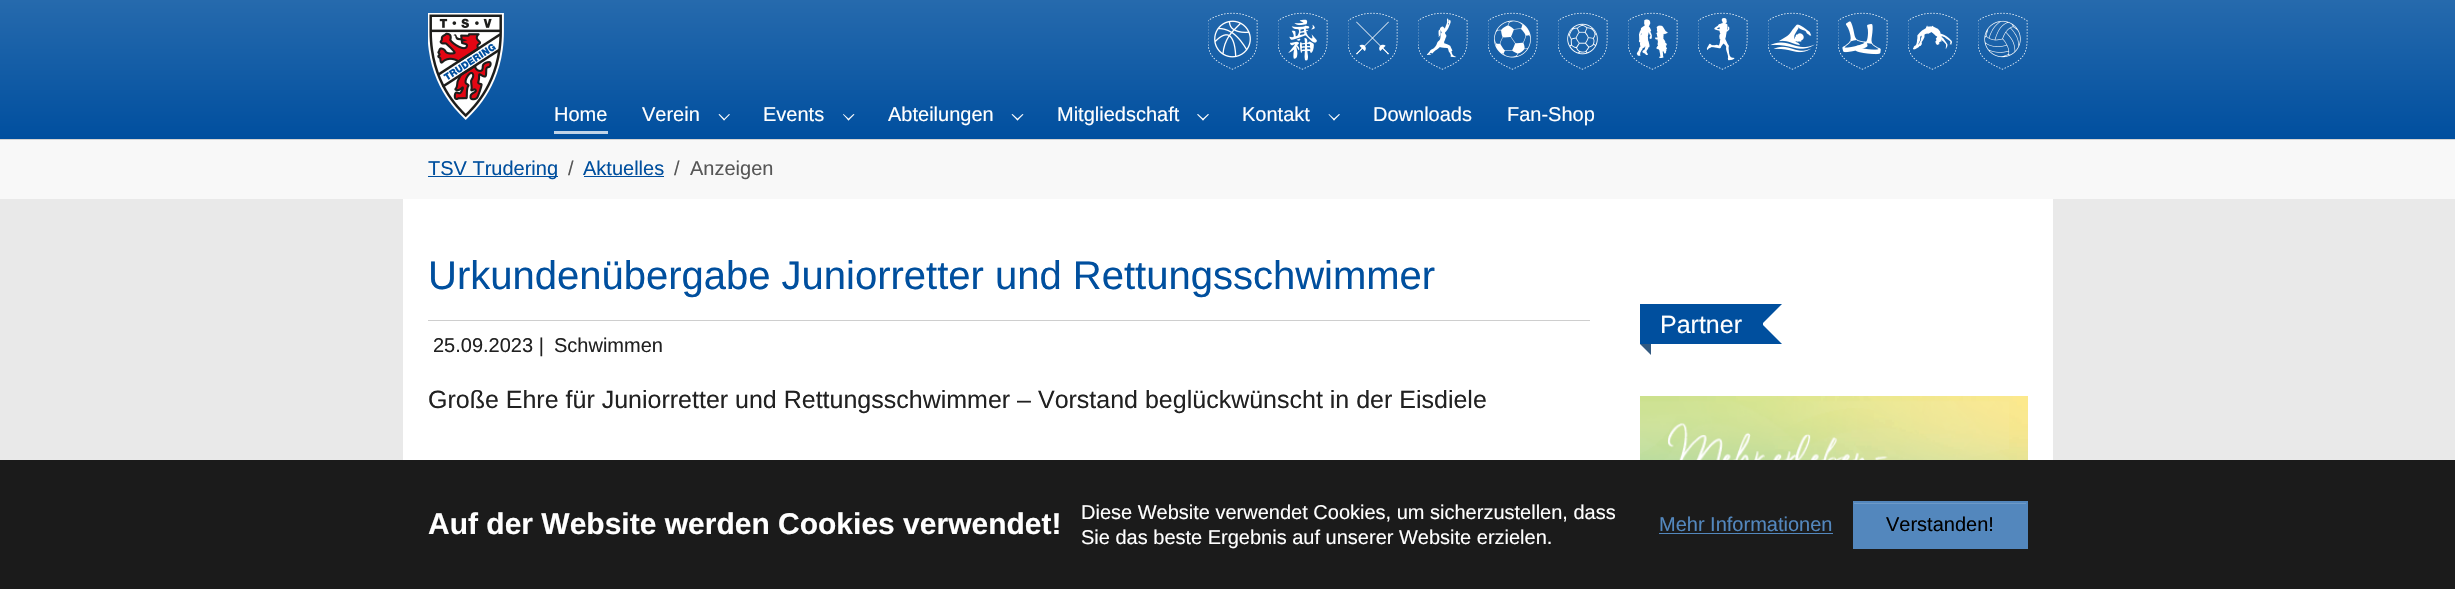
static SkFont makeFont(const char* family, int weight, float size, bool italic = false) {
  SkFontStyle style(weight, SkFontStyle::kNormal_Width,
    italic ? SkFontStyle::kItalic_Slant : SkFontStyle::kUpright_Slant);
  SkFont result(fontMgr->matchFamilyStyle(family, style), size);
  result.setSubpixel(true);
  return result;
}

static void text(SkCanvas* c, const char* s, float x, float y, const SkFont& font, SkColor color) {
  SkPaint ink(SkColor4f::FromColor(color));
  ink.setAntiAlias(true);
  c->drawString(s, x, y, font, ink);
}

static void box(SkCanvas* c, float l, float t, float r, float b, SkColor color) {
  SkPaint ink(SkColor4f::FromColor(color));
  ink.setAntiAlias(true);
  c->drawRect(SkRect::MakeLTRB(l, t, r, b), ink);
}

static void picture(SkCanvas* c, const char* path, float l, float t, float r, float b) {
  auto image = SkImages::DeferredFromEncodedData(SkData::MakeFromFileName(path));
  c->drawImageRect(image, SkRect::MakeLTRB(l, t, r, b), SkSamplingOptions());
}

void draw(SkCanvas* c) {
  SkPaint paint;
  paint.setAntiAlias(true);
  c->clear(0xffe9e9e9);
  box(c, 0, 139, 2455, 140, 0xffd3d3d3);
  {
    const SkColor colors[] = {0xff266aad, 0xff004f9f};
    const float stops[] = {0, 1};
    const SkPoint ends[] = {{1228, 0}, {1228, 139}};
    paint.setShader(SkGradientShader::MakeLinear(ends, colors, stops, 2, SkTileMode::kClamp));
    paint.setAlpha(255);
  }
  c->drawRect(SkRect::MakeLTRB(0, 0, 2455, 139), paint);
  picture(c, "img_01.png", 428, 13, 504, 120);
  picture(c, "img_02.png", 1208, 12, 1258, 70);
  picture(c, "img_03.png", 1278, 12, 1328, 70);
  picture(c, "img_04.png", 1348, 12, 1398, 70);
  picture(c, "img_05.png", 1418, 12, 1468, 70);
  picture(c, "img_06.png", 1488, 12, 1538, 70);
  picture(c, "img_07.png", 1558, 12, 1608, 70);
  picture(c, "img_08.png", 1628, 12, 1678, 70);
  picture(c, "img_09.png", 1698, 12, 1748, 70);
  picture(c, "img_10.png", 1768, 12, 1818, 70);
  picture(c, "img_11.png", 1838, 12, 1888, 70);
  picture(c, "img_12.png", 1908, 12, 1958, 70);
  picture(c, "img_13.png", 1978, 12, 2028, 70);
  SkFont face1 = makeFont("Liberation Sans", 400, 20);
  text(c, "Home", 554, 121, face1, 0xffffffff);
  box(c, 554, 131, 608, 134, 0xffc0d3e7);
  text(c, "Verein", 642, 121, face1, 0xffffffff);
  paint.setShader(nullptr);
  paint.setColor(0xffffffff);
  c->drawPath(SkPathBuilder().moveTo(724, 120.5f).lineTo(718.5f, 114.5f).lineTo(719.5f, 114).lineTo(725, 119.5f).close().detach(), paint);
  c->drawPath(SkPathBuilder().moveTo(724, 120.5f).lineTo(723.5f, 119.5f).lineTo(729, 114).lineTo(730, 114.5f).close().detach(), paint);
  text(c, "Events", 763, 121, face1, 0xffffffff);
  c->drawPath(SkPathBuilder().moveTo(848.5f, 120.5f).lineTo(843, 114.5f).lineTo(843.5f, 114).lineTo(849.5f, 119.5f).close().detach(), paint);
  c->drawPath(SkPathBuilder().moveTo(848.5f, 120.5f).lineTo(847.5f, 119.5f).lineTo(853.5f, 114).lineTo(854.5f, 114.5f).close().detach(), paint);
  text(c, "Abteilungen", 888, 121, face1, 0xffffffff);
  c->drawPath(SkPathBuilder().moveTo(1017.5f, 120.5f).lineTo(1011.5f, 114.5f).lineTo(1012.5f, 114).lineTo(1018.5f, 119.5f).close().detach(), paint);
  c->drawPath(SkPathBuilder().moveTo(1017.5f, 120.5f).lineTo(1016.5f, 119.5f).lineTo(1022.5f, 114).lineTo(1023.5f, 114.5f).close().detach(), paint);
  text(c, "Mitgliedschaft", 1057, 121, face1, 0xffffffff);
  c->drawPath(SkPathBuilder().moveTo(1203, 120.5f).lineTo(1197, 114.5f).lineTo(1198, 114).lineTo(1204, 119.5f).close().detach(), paint);
  c->drawPath(SkPathBuilder().moveTo(1203, 120.5f).lineTo(1202, 119.5f).lineTo(1208, 114).lineTo(1209, 114.5f).close().detach(), paint);
  text(c, "Kontakt", 1242, 121, face1, 0xffffffff);
  c->drawPath(SkPathBuilder().moveTo(1334, 120.5f).lineTo(1328.5f, 114.5f).lineTo(1329, 114).lineTo(1335, 119.5f).close().detach(), paint);
  c->drawPath(SkPathBuilder().moveTo(1334, 120.5f).lineTo(1333, 119.5f).lineTo(1339, 114).lineTo(1340, 114.5f).close().detach(), paint);
  text(c, "Downloads", 1373, 121, face1, 0xffffffff);
  text(c, "Fan-Shop", 1507, 121, face1, 0xffffffff);
  box(c, 0, 140, 2455, 199, 0xfff8f8f8);
  box(c, 428, 176, 558, 177, 0xff004f9e);
  text(c, "TSV Trudering", 428, 175, face1, 0xff004f9e);
  text(c, "/", 568, 175, face1, 0xff575757);
  text(c, "Aktuelles", 583, 175, face1, 0xff004f9e);
  box(c, 584, 176, 664, 177, 0xff004f9e);
  text(c, "/", 674, 175, face1, 0xff575757);
  text(c, "Anzeigen", 690, 175, face1, 0xff575757);
  box(c, 403, 199, 2053, 460, 0xffffffff);
  box(c, 428, 320, 1590, 321, 0xffcecece);
  SkFont face2 = makeFont("Liberation Sans", 400, 40);
  text(c, "Urkundenübergabe Juniorretter und Rettungsschwimmer", 428, 289, face2, 0xff004f9e);
  text(c, "25.09.2023 |", 433, 352, face1, 0xff212121);
  text(c, "Schwimmen", 554, 352, face1, 0xff212121);
  SkFont face3 = makeFont("Liberation Sans", 400, 25);
  text(c, "Große Ehre für Juniorretter und Rettungsschwimmer – Vorstand beglückwünscht in der Eisdiele", 428, 408, face3, 0xff212121);
  box(c, 1640, 304, 1763, 344, 0xff004f9e);
  text(c, "Partner", 1660, 333, face3, 0xffffffff);
  paint.setColor(0xff004f9e);
  c->drawPath(SkPathBuilder().moveTo(1742, 304).lineTo(1782, 304).lineTo(1762, 324).close().moveTo(1782, 344).lineTo(1742, 344).lineTo(1762, 324).close().detach(), paint);
  paint.setColor(0xff335a81);
  c->drawPath(SkPathBuilder().moveTo(1640, 344).lineTo(1651, 344).lineTo(1651, 355).close().detach(), paint);
  picture(c, "img_14.png", 1640, 396, 2028, 460);
  box(c, 0, 460, 2455, 589, 0xff1b1b1b);
  SkFont face4 = makeFont("Liberation Sans", 700, 30);
  text(c, "Auf der Website werden Cookies verwendet!", 428, 534, face4, 0xffffffff);
  text(c, "Diese Website verwendet Cookies, um sicherzustellen, dass", 1081, 519, face1, 0xffffffff);
  text(c, "Sie das beste Ergebnis auf unserer Website erzielen.", 1081, 544, face1, 0xffffffff);
  text(c, "Mehr Informationen", 1659, 531, face1, 0xff5387bd);
  box(c, 1659, 533, 1833, 534, 0xff5387bd);
  box(c, 1853, 501, 2028, 549, 0xff5387bd);
  box(c, 1854, 503, 2026, 504, 0xff6d99c7);
  text(c, "Verstanden!", 1886, 531, face1, 0xff000000);
}
